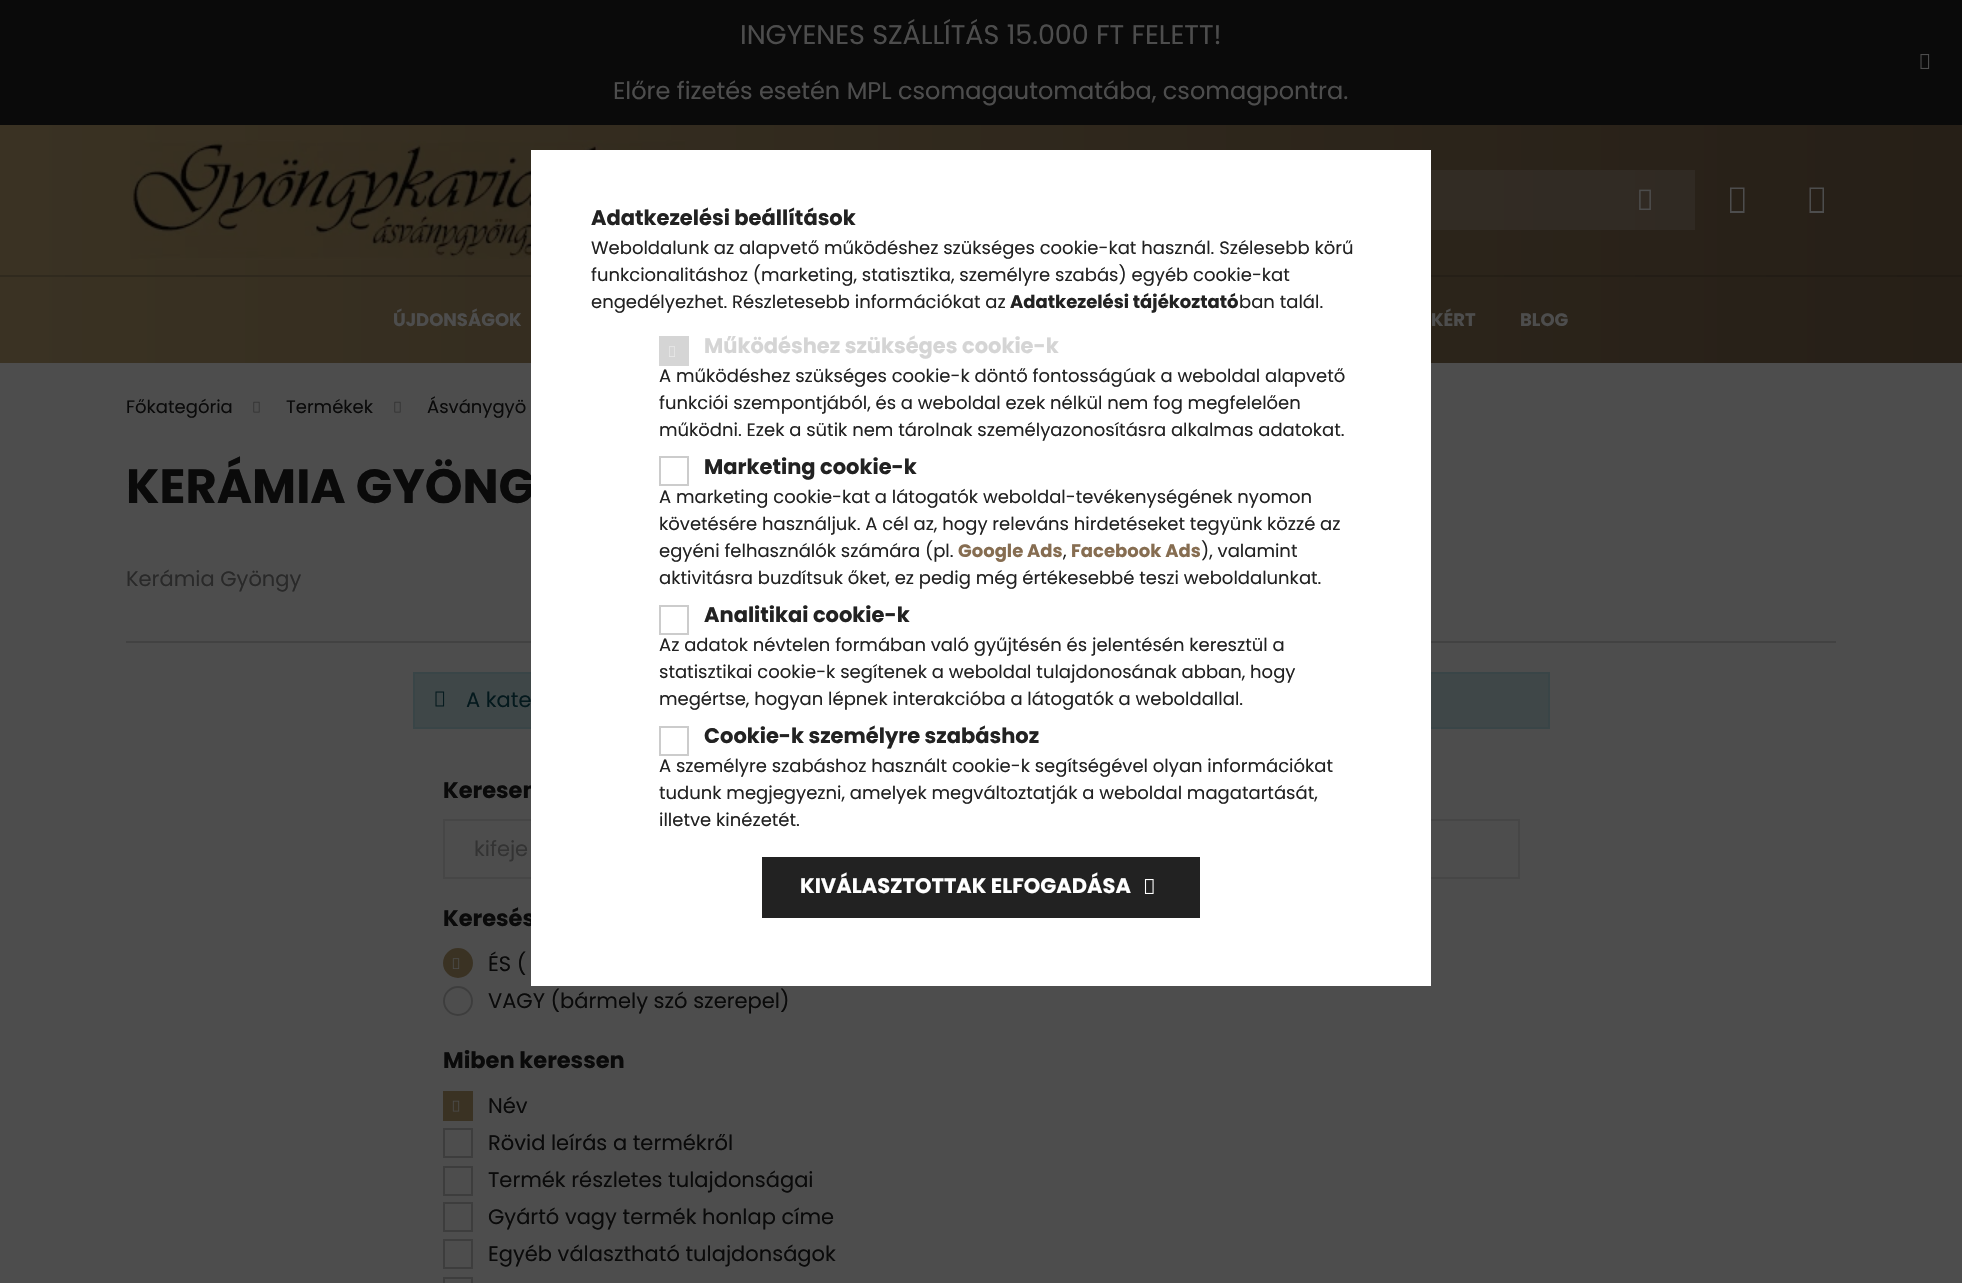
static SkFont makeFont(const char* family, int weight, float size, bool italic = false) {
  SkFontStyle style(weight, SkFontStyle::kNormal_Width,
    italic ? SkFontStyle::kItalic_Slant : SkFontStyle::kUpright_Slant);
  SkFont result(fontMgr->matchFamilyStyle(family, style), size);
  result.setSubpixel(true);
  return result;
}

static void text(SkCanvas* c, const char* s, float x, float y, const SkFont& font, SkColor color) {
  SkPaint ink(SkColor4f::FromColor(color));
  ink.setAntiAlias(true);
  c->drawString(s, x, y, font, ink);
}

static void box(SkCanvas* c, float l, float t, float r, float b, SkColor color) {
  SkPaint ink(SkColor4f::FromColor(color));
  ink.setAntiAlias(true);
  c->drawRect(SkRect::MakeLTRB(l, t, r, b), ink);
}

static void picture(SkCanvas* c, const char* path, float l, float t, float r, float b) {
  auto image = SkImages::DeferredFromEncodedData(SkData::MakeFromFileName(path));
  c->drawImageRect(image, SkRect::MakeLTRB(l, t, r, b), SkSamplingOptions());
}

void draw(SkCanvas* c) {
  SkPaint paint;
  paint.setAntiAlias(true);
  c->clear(0xff4d4d4d);
  box(c, 0, 0, 1962, 125, 0xff0a0a0a);
  SkFont face1 = makeFont("Poppins", 400, 27);
  text(c, "INGYENES SZÁLLÍTÁS 15.000 FT FELETT!", 740, 44, face1, 0xff4d4d4d);
  picture(c, "img_01.png", 1920, 54, 1930, 69);
  SkFont face2 = makeFont("Poppins", 400, 24);
  text(c, "Előre fizetés esetén MPL csomagautomatába, csomagpontra.", 613, 99, face2, 0xff4d4d4d);
  {
    const SkColor colors[] = {0xff3a3223, 0xff261f17};
    const float stops[] = {0, 1};
    const SkPoint ends[] = {{0, 200}, {1962, 199}};
    paint.setShader(SkGradientShader::MakeLinear(ends, colors, stops, 2, SkTileMode::kClamp));
    paint.setAlpha(255);
  }
  c->drawRect(SkRect::MakeLTRB(0, 125, 1962, 275), paint);
  {
    const SkColor colors[] = {0xff3e372b, 0xff2e2822};
    const float stops[] = {0, 1};
    const SkPoint ends[] = {{0, 200}, {1962, 199}};
    paint.setShader(SkGradientShader::MakeLinear(ends, colors, stops, 2, SkTileMode::kClamp));
    paint.setAlpha(255);
  }
  c->drawRect(SkRect::MakeLTRB(1431, 170, 1695, 230), paint);
  picture(c, "img_02.png", 130, 140, 685, 260);
  picture(c, "img_03.png", 1639, 189, 1651, 210);
  paint.setShader(nullptr);
  paint.setColor(0xff4d4d4d);
  c->drawPath(SkPathBuilder().moveTo(1730, 213).lineTo(1730, 187.5f).lineTo(1744.5f, 187.5f).lineTo(1744.5f, 213).close().moveTo(1731.5f, 211).lineTo(1743, 211).lineTo(1743, 189).lineTo(1731.5f, 189).close().detach(), paint);
  c->drawPath(SkPathBuilder().moveTo(1809.5f, 213).lineTo(1809.5f, 187.5f).lineTo(1824, 187.5f).lineTo(1824, 213).close().moveTo(1811, 211).lineTo(1822.5f, 211).lineTo(1822.5f, 189).lineTo(1811, 189).close().detach(), paint);
  {
    const SkColor colors[] = {0xff3a3223, 0xff261f17};
    const float stops[] = {0, 1};
    const SkPoint ends[] = {{0, 320}, {1962, 319}};
    paint.setShader(SkGradientShader::MakeLinear(ends, colors, stops, 2, SkTileMode::kClamp));
    paint.setAlpha(255);
  }
  c->drawRect(SkRect::MakeLTRB(0, 277, 1962, 363), paint);
  {
    const SkColor colors[] = {0xff302a1e, 0xff211b14};
    const float stops[] = {0, 1};
    const SkPoint ends[] = {{0, 320}, {1962, 319}};
    paint.setShader(SkGradientShader::MakeLinear(ends, colors, stops, 2, SkTileMode::kClamp));
    paint.setAlpha(255);
  }
  c->drawRect(SkRect::MakeLTRB(0, 275, 1962, 277), paint);
  SkFont face3 = makeFont("Poppins", 700, 18);
  text(c, "ÚJDONSÁGOK", 393, 326, face3, 0xff4d4d4d);
  text(c, "KÉRT", 1431, 326, face3, 0xff4d4d4d);
  text(c, "BLOG", 1520, 326, face3, 0xff4d4d4d);
  SkFont face4 = makeFont("Poppins", 400, 18);
  text(c, "Főkategória", 126, 413, face4, 0xff0a0a0a);
  picture(c, "img_04.png", 253, 401, 260, 413);
  text(c, "Termékek", 286, 413, face4, 0xff0a0a0a);
  picture(c, "img_04.png", 394, 401, 401, 413);
  text(c, "Ásványgyö", 427, 413, face4, 0xff0a0a0a);
  SkFont face5 = makeFont("Poppins", 700, 48);
  text(c, "KERÁMIA GYÖNG", 126, 503, face5, 0xff0a0a0a);
  SkFont face6 = makeFont("Poppins", 400, 21);
  text(c, "Kerámia Gyöngy", 126, 586, face6, 0xff292929);
  box(c, 126, 641, 1836, 643, 0xff424242);
  paint.setShader(nullptr);
  paint.setColor(0xff3f4748);
  c->drawRect(SkRect::MakeLTRB(414, 673, 1549, 728), paint);
  paint.setStyle(SkPaint::kStroke_Style);
  paint.setStrokeWidth(2);
  paint.setColor(0xff394547);
  c->drawRect(SkRect::MakeLTRB(414, 673, 1549, 728), paint);
  picture(c, "img_05.png", 435, 691, 445, 707);
  text(c, "A kate", 466, 707, face6, 0xff04191d);
  SkFont face7 = makeFont("Poppins", 700, 22.5f);
  text(c, "Keresen", 443, 798, face7, 0xff0a0a0a);
  paint.setColor(0xff464646);
  c->drawRect(SkRect::MakeLTRB(444, 820, 1519, 878), paint);
  text(c, "kifeje", 474, 856, face6, 0xff333333);
  text(c, "Keresés", 443, 926, face7, 0xff0a0a0a);
  paint.setStyle(SkPaint::kFill_Style);
  paint.setColor(0xff3a3223);
  c->drawCircle(458, 963, 14, paint);
  paint.setStyle(SkPaint::kStroke_Style);
  c->drawCircle(458, 963, 14, paint);
  picture(c, "img_06.png", 452, 958, 460, 969);
  text(c, "ÉS (", 488, 971, face6, 0xff0a0a0a);
  paint.setColor(0xff3d3d3d);
  c->drawCircle(458, 1001, 14, paint);
  text(c, "VAGY (bármely szó szerepel)", 488, 1008, face6, 0xff0a0a0a);
  text(c, "Miben keressen", 443, 1068, face7, 0xff0a0a0a);
  box(c, 443, 1091, 473, 1121, 0xff3a3223);
  picture(c, "img_07.png", 452, 1100, 460, 1112);
  text(c, "Név", 488, 1113, face6, 0xff0a0a0a);
  c->drawRect(SkRect::MakeLTRB(444, 1129, 472, 1157), paint);
  text(c, "Rövid leírás a termékről", 488, 1150, face6, 0xff0a0a0a);
  c->drawRect(SkRect::MakeLTRB(444, 1167, 472, 1195), paint);
  text(c, "Termék részletes tulajdonságai", 488, 1187, face6, 0xff0a0a0a);
  c->drawRect(SkRect::MakeLTRB(444, 1203, 472, 1231), paint);
  text(c, "Gyártó vagy termék honlap címe", 488, 1224, face6, 0xff0a0a0a);
  c->drawRect(SkRect::MakeLTRB(444, 1240, 472, 1268), paint);
  text(c, "Egyéb választható tulajdonságok", 488, 1261, face6, 0xff0a0a0a);
  c->drawRect(SkRect::MakeLTRB(444, 1278, 472, 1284), paint);
  box(c, 531, 150, 1431, 986, 0xffffffff);
  SkFont face8 = makeFont("Poppins", 700, 21);
  text(c, "Adatkezelési beállítások", 591, 225, face8, 0xff222222);
  text(c, "Weboldalunk az alapvető működéshez szükséges cookie-kat használ. Szélesebb körű", 591, 254, face4, 0xff222222);
  text(c, "funkcionalitáshoz (marketing, statisztika, személyre szabás) egyéb cookie-kat", 591, 281, face4, 0xff222222);
  text(c, "engedélyezhet. Részletesebb információkat az", 591, 308, face4, 0xff222222);
  text(c, "Adatkezelési tájékoztató", 1010, 308, face3, 0xff222222);
  text(c, "ban talál.", 1239, 308, face4, 0xff222222);
  box(c, 659, 336, 689, 366, 0xffd5d5d5);
  picture(c, "img_08.png", 669, 346, 675, 357);
  text(c, "Működéshez szükséges cookie-k", 704, 353, face8, 0xffd5d5d5);
  text(c, "A működéshez szükséges cookie-k döntő fontosságúak a weboldal alapvető", 659, 382, face4, 0xff222222);
  text(c, "funkciói szempontjából, és a weboldal ezek nélkül nem fog megfelelően", 659, 409, face4, 0xff222222);
  text(c, "működni. Ezek a sütik nem tárolnak személyazonosításra alkalmas adatokat.", 659, 436, face4, 0xff222222);
  paint.setColor(0xffcccccc);
  c->drawRect(SkRect::MakeLTRB(660, 457, 688, 485), paint);
  text(c, "Marketing cookie-k", 704, 474, face8, 0xff222222);
  text(c, "A marketing cookie-kat a látogatók weboldal-tevékenységének nyomon", 659, 503, face4, 0xff222222);
  text(c, "követésére használjuk. A cél az, hogy releváns hirdetéseket tegyünk közzé az", 659, 530, face4, 0xff222222);
  text(c, "egyéni felhasználók számára (pl.", 659, 557, face4, 0xff222222);
  text(c, "Google Ads", 958, 557, face3, 0xff866d51);
  text(c, ",", 1063, 557, face4, 0xff222222);
  text(c, "Facebook Ads", 1071, 557, face3, 0xff866d51);
  text(c, "), valamint", 1201, 557, face4, 0xff222222);
  text(c, "aktivitásra buzdítsuk őket, ez pedig még értékesebbé teszi weboldalunkat.", 659, 584, face4, 0xff222222);
  c->drawRect(SkRect::MakeLTRB(660, 606, 688, 634), paint);
  text(c, "Analitikai cookie-k", 704, 622, face8, 0xff222222);
  text(c, "Az adatok névtelen formában való gyűjtésén és jelentésén keresztül a", 659, 651, face4, 0xff222222);
  text(c, "statisztikai cookie-k segítenek a weboldal tulajdonosának abban, hogy", 659, 678, face4, 0xff222222);
  text(c, "megértse, hogyan lépnek interakcióba a látogatók a weboldallal.", 659, 705, face4, 0xff222222);
  c->drawRect(SkRect::MakeLTRB(660, 727, 688, 755), paint);
  text(c, "Cookie-k személyre szabáshoz", 704, 743, face8, 0xff222222);
  text(c, "A személyre szabáshoz használt cookie-k segítségével olyan információkat", 659, 772, face4, 0xff222222);
  text(c, "tudunk megjegyezni, amelyek megváltoztatják a weboldal magatartását,", 659, 799, face4, 0xff222222);
  text(c, "illetve kinézetét.", 659, 826, face4, 0xff222222);
  paint.setStyle(SkPaint::kFill_Style);
  {
    const SkColor colors[] = {0xffc0a673, 0xff80674d, 0xff222222, 0xff222222};
    const float stops[] = {0, 0.33f, 0.67f, 1};
    const SkPoint ends[] = {{-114, 887}, {1200, 887}};
    paint.setShader(SkGradientShader::MakeLinear(ends, colors, stops, 4, SkTileMode::kClamp));
    paint.setAlpha(255);
  }
  c->drawRect(SkRect::MakeLTRB(762, 857, 1200, 918), paint);
  text(c, "KIVÁLASZTOTTAK ELFOGADÁSA", 800, 893, face8, 0xffffffff);
  picture(c, "img_09.png", 1144, 879, 1154, 894);
}
